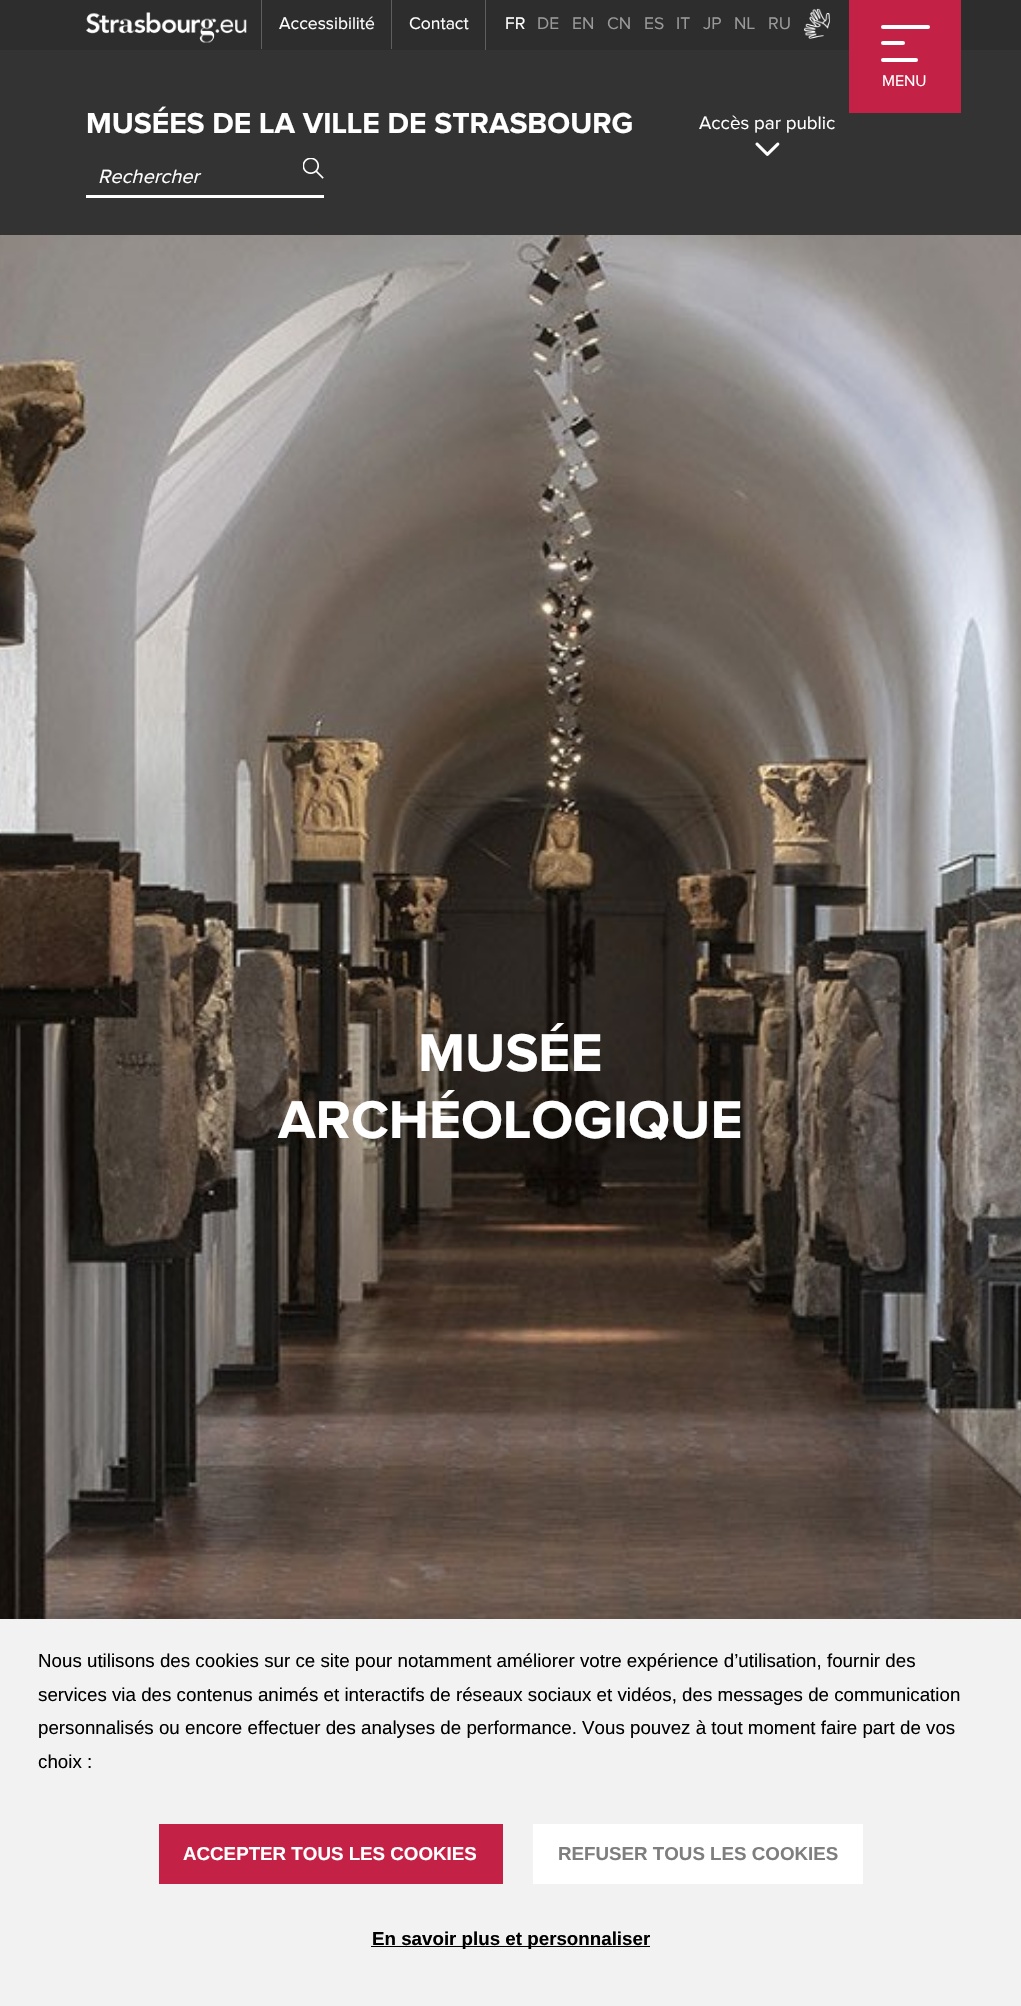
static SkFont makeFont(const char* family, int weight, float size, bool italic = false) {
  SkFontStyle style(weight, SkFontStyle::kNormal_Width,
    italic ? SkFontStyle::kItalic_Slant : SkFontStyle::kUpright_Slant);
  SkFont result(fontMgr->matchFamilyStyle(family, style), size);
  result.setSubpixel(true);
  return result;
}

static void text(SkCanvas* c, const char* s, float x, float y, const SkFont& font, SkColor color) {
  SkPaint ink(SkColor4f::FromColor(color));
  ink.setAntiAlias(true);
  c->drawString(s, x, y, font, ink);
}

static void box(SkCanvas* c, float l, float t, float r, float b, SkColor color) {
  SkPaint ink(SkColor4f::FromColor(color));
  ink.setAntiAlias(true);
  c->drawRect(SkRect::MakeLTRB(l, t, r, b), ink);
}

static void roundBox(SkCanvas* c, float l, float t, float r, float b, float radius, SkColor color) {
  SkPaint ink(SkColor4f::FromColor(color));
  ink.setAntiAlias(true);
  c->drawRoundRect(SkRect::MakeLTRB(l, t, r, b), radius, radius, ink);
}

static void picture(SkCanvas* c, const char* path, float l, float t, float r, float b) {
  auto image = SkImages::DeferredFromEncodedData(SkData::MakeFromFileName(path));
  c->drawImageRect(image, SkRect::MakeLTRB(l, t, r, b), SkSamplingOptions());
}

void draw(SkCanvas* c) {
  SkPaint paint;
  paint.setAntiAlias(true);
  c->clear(0xff2d2d2d);
  picture(c, "img_01.png", 86, 12, 247, 43);
  box(c, 261, 0, 262, 49, 0xff5e5e5e);
  SkFont face1 = makeFont("Proxima Nova", 400, 17.5f);
  text(c, "Accessibilité", 279, 29, face1, 0xffffffff);
  box(c, 391, 0, 392, 49, 0xff5e5e5e);
  text(c, "Contact", 409, 29, face1, 0xffffffff);
  box(c, 485, 0, 486, 50, 0xff5e5e5e);
  text(c, "FR", 505, 29, face1, 0xffffffff);
  text(c, "DE", 537, 29, face1, 0xff999999);
  text(c, "EN", 572, 29, face1, 0xff999999);
  text(c, "CN", 607, 29, face1, 0xff999999);
  text(c, "ES", 644, 29, face1, 0xff999999);
  text(c, "IT", 676, 29, face1, 0xff999999);
  text(c, "JP", 703, 29, face1, 0xff999999);
  text(c, "NL", 734, 29, face1, 0xff999999);
  text(c, "RU", 768, 29, face1, 0xff999999);
  picture(c, "img_02.png", 804, 8, 830, 39);
  box(c, 0, 50, 1021, 235, 0xff333333);
  box(c, 849, 0, 961, 113, 0xffc42147);
  roundBox(c, 881, 41, 905, 45, 2, 0xffffffff);
  roundBox(c, 881, 25, 930, 29, 2, 0xffffffff);
  roundBox(c, 881, 58, 918, 62, 2, 0xffffffff);
  SkFont face2 = makeFont("Proxima Nova", 400, 16);
  text(c, "MENU", 882, 86, face2, 0xffffffff);
  SkFont face3 = makeFont("Proxima Nova", 700, 30);
  text(c, "MUSÉES DE LA VILLE DE STRASBOURG", 86, 133, face3, 0xffffffff);
  SkFont face4 = makeFont("Proxima Nova", 400, 18.75f);
  text(c, "Accès par public", 699, 129, face4, 0xffffffff);
  picture(c, "img_03.png", 755, 142, 780, 156);
  box(c, 86, 195, 324, 198, 0xffffffff);
  SkFont face5 = makeFont("Proxima Nova", 400, 20, true);
  text(c, "Rechercher", 98, 183, face5, 0xffffffff);
  picture(c, "img_04.png", 303, 158, 324, 179);
  picture(c, "img_05.png", 0, 235, 1021, 1619);
  SkFont face6 = makeFont("Proxima Nova", 700, 55);
  text(c, "MUSÉE", 418, 1071, face6, 0xffffffff);
  text(c, "ARCHÉOLOGIQUE", 278, 1138, face6, 0xffffffff);
  box(c, 0, 1619, 1021, 2006, 0xfff2f2f2);
  SkFont face7 = makeFont("Liberation Sans", 400, 18.75f);
  text(c, "Nous utilisons des cookies sur ce site pour notamment améliorer votre expérience d’utilisation, fournir des", 38, 1667, face7, 0xff000000);
  text(c, "services via des contenus animés et interactifs de réseaux sociaux et vidéos, des messages de communication", 38, 1701, face7, 0xff000000);
  text(c, "personnalisés ou encore effectuer des analyses de performance. Vous pouvez à tout moment faire part de vos", 38, 1734, face7, 0xff000000);
  text(c, "choix :", 38, 1768, face7, 0xff000000);
  box(c, 159, 1824, 503, 1884, 0xffc42147);
  SkFont face8 = makeFont("Liberation Sans", 700, 18.75f);
  text(c, "ACCEPTER TOUS LES COOKIES", 183, 1860, face8, 0xffffffff);
  box(c, 533, 1824, 863, 1884, 0xffffffff);
  text(c, "REFUSER TOUS LES COOKIES", 558, 1860, face8, 0xff7e7e7e);
  box(c, 371, 1946, 650, 1947, 0xff000000);
  text(c, "En savoir plus et personnaliser", 372, 1945, face8, 0xff000000);
}
